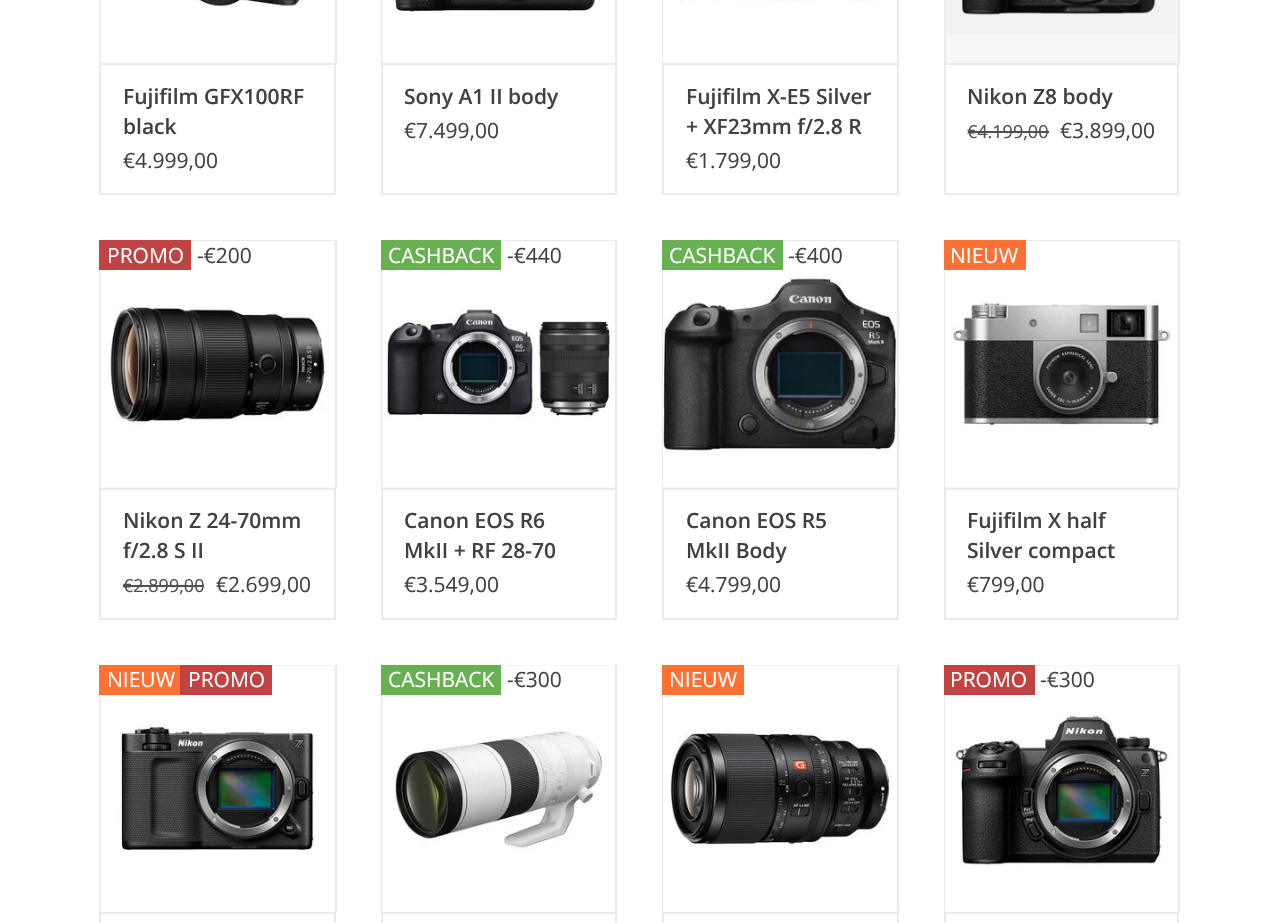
static SkFont makeFont(const char* family, int weight, float size, bool italic = false) {
  SkFontStyle style(weight, SkFontStyle::kNormal_Width,
    italic ? SkFontStyle::kItalic_Slant : SkFontStyle::kUpright_Slant);
  SkFont result(fontMgr->matchFamilyStyle(family, style), size);
  result.setSubpixel(true);
  return result;
}

static void text(SkCanvas* c, const char* s, float x, float y, const SkFont& font, SkColor color) {
  SkPaint ink(SkColor4f::FromColor(color));
  ink.setAntiAlias(true);
  c->drawString(s, x, y, font, ink);
}

static void box(SkCanvas* c, float l, float t, float r, float b, SkColor color) {
  SkPaint ink(SkColor4f::FromColor(color));
  ink.setAntiAlias(true);
  c->drawRect(SkRect::MakeLTRB(l, t, r, b), ink);
}

static void picture(SkCanvas* c, const char* path, float l, float t, float r, float b) {
  auto image = SkImages::DeferredFromEncodedData(SkData::MakeFromFileName(path));
  c->drawImageRect(image, SkRect::MakeLTRB(l, t, r, b), SkSamplingOptions());
}

void draw(SkCanvas* c) {
  SkPaint paint;
  paint.setAntiAlias(true);
  c->clear(0xffffffff);
  box(c, 101, 0, 335, 63, 0xfff7f7f7);
  box(c, 335, 0, 337, 63, 0xffeaeaea);
  box(c, 99, 0, 101, 63, 0xffeaeaea);
  picture(c, "img_01.png", 100, 0, 335, 63);
  paint.setStyle(SkPaint::kStroke_Style);
  paint.setStrokeWidth(2);
  paint.setColor(0xffeaeaea);
  c->drawRect(SkRect::MakeLTRB(100, 64, 335, 194), paint);
  SkFont face1 = makeFont("Open Sans", 600, 21);
  text(c, "Fujifilm GFX100RF", 123, 104, face1, 0xff414141);
  text(c, "black", 123, 134, face1, 0xff414141);
  SkFont face2 = makeFont("Open Sans", 400, 21);
  text(c, "€4.999,00", 123, 168, face2, 0xff414141);
  box(c, 383, 62, 615, 63, 0xfff7f7f7);
  box(c, 615, 0, 617, 63, 0xffeaeaea);
  box(c, 381, 0, 383, 63, 0xffeaeaea);
  picture(c, "img_02.png", 382, 0, 615, 63);
  c->drawRect(SkRect::MakeLTRB(382, 64, 616, 194), paint);
  text(c, "Sony A1 II body", 404, 104, face1, 0xff414141);
  text(c, "€7.499,00", 404, 138, face2, 0xff414141);
  box(c, 664, 62, 897, 63, 0xfff7f7f7);
  box(c, 897, 0, 899, 63, 0xffeaeaea);
  box(c, 662, 0, 664, 63, 0xffeaeaea);
  picture(c, "img_03.png", 663, 0, 897, 63);
  c->drawRect(SkRect::MakeLTRB(663, 64, 898, 194), paint);
  text(c, "Fujifilm X-E5 Silver", 686, 104, face1, 0xff414141);
  text(c, "+ XF23mm f/2.8 R", 686, 134, face1, 0xff414141);
  text(c, "€1.799,00", 686, 168, face2, 0xff414141);
  box(c, 946, 0, 1178, 63, 0xfff7f7f7);
  box(c, 1178, 0, 1180, 63, 0xffeaeaea);
  box(c, 944, 0, 946, 63, 0xffeaeaea);
  picture(c, "img_04.png", 945, 0, 1177, 35);
  c->drawRect(SkRect::MakeLTRB(945, 64, 1178, 194), paint);
  text(c, "Nikon Z8 body", 967, 104, face1, 0xff414141);
  SkFont face3 = makeFont("Open Sans", 400, 18);
  text(c, "€4.199,00", 967, 138, face3, 0xff505050);
  box(c, 968, 131, 1049, 133, 0xff505050);
  text(c, "€3.899,00", 1060, 138, face2, 0xff414141);
  box(c, 101, 242, 335, 488, 0xfff7f7f7);
  box(c, 191, 240, 336, 242, 0xffeaeaea);
  box(c, 335, 240, 337, 488, 0xffeaeaea);
  box(c, 99, 270, 101, 488, 0xffeaeaea);
  picture(c, "img_05.png", 100, 241, 335, 487);
  box(c, 99, 240, 191, 270, 0xffc14242);
  text(c, "PROMO", 107, 263, face2, 0xffffffff);
  text(c, "-€200", 197, 263, face2, 0xff414141);
  c->drawRect(SkRect::MakeLTRB(100, 489, 335, 619), paint);
  text(c, "Nikon Z 24-70mm", 123, 528, face1, 0xff414141);
  text(c, "f/2.8 S II", 123, 558, face1, 0xff414141);
  text(c, "€2.899,00", 123, 592, face3, 0xff505050);
  box(c, 123, 585, 204, 587, 0xff505050);
  text(c, "€2.699,00", 216, 592, face2, 0xff414141);
  box(c, 383, 487, 615, 488, 0xfff7f7f7);
  box(c, 501, 240, 617, 241, 0xffeaeaea);
  box(c, 615, 240, 617, 488, 0xffeaeaea);
  box(c, 381, 270, 383, 488, 0xffeaeaea);
  picture(c, "img_06.png", 382, 241, 615, 487);
  box(c, 381, 240, 501, 270, 0xff68b152);
  text(c, "CASHBACK", 388, 263, face2, 0xffffffff);
  text(c, "-€440", 507, 263, face2, 0xff414141);
  c->drawRect(SkRect::MakeLTRB(382, 489, 616, 619), paint);
  text(c, "Canon EOS R6", 404, 528, face1, 0xff414141);
  text(c, "MkII + RF 28-70", 404, 558, face1, 0xff414141);
  text(c, "€3.549,00", 404, 592, face2, 0xff414141);
  box(c, 664, 487, 897, 488, 0xfff7f7f7);
  box(c, 783, 240, 899, 241, 0xffeaeaea);
  box(c, 897, 240, 899, 488, 0xffeaeaea);
  box(c, 662, 270, 664, 488, 0xffeaeaea);
  picture(c, "img_07.png", 663, 241, 897, 487);
  box(c, 662, 240, 783, 270, 0xff68b152);
  text(c, "CASHBACK", 669, 263, face2, 0xffffffff);
  text(c, "-€400", 788, 263, face2, 0xff414141);
  c->drawRect(SkRect::MakeLTRB(663, 489, 898, 619), paint);
  text(c, "Canon EOS R5", 686, 528, face1, 0xff414141);
  text(c, "MkII Body", 686, 558, face1, 0xff414141);
  text(c, "€4.799,00", 686, 592, face2, 0xff414141);
  box(c, 946, 242, 1178, 488, 0xfff7f7f7);
  box(c, 1026, 240, 1179, 242, 0xffeaeaea);
  box(c, 1178, 240, 1180, 488, 0xffeaeaea);
  box(c, 944, 270, 946, 488, 0xffeaeaea);
  picture(c, "img_08.png", 945, 241, 1178, 487);
  box(c, 944, 240, 1026, 270, 0xfffe7132);
  text(c, "NIEUW", 950, 263, face2, 0xffffffff);
  c->drawRect(SkRect::MakeLTRB(945, 489, 1178, 619), paint);
  text(c, "Fujifilm X half", 967, 528, face1, 0xff414141);
  c->save();
  c->clipRect(SkRect::MakeLTRB(968, 506, 1155, 566));
  text(c, "Silver compact", 967, 558, face1, 0xff414141);
  c->restore();
  text(c, "€799,00", 967, 592, face2, 0xff414141);
  box(c, 101, 667, 335, 912, 0xfff7f7f7);
  box(c, 272, 665, 336, 667, 0xffeaeaea);
  box(c, 335, 665, 337, 912, 0xffeaeaea);
  box(c, 99, 695, 101, 912, 0xffeaeaea);
  picture(c, "img_09.png", 100, 665, 335, 912);
  box(c, 99, 665, 180, 695, 0xfffe7132);
  text(c, "NIEUW", 107, 687, face2, 0xffffffff);
  box(c, 180, 665, 272, 695, 0xffc14242);
  text(c, "PROMO", 188, 687, face2, 0xffffffff);
  c->drawRect(SkRect::MakeLTRB(100, 913, 335, 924), paint);
  box(c, 383, 911, 615, 912, 0xfff7f7f7);
  box(c, 501, 665, 617, 666, 0xffeaeaea);
  box(c, 615, 665, 617, 912, 0xffeaeaea);
  box(c, 381, 695, 383, 912, 0xffeaeaea);
  picture(c, "img_10.png", 382, 665, 615, 912);
  box(c, 381, 665, 501, 695, 0xff68b152);
  text(c, "CASHBACK", 388, 687, face2, 0xffffffff);
  text(c, "-€300", 507, 687, face2, 0xff414141);
  c->drawRect(SkRect::MakeLTRB(382, 913, 616, 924), paint);
  box(c, 664, 911, 897, 912, 0xfff7f7f7);
  box(c, 744, 665, 899, 666, 0xffeaeaea);
  box(c, 897, 665, 899, 912, 0xffeaeaea);
  box(c, 662, 695, 664, 912, 0xffeaeaea);
  picture(c, "img_11.png", 663, 665, 897, 912);
  box(c, 662, 665, 744, 695, 0xfffe7132);
  text(c, "NIEUW", 669, 687, face2, 0xffffffff);
  c->drawRect(SkRect::MakeLTRB(663, 913, 898, 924), paint);
  box(c, 946, 667, 1178, 912, 0xfff7f7f7);
  box(c, 1035, 665, 1179, 667, 0xffeaeaea);
  box(c, 1178, 665, 1180, 912, 0xffeaeaea);
  box(c, 944, 695, 946, 912, 0xffeaeaea);
  picture(c, "img_12.png", 945, 665, 1178, 912);
  box(c, 944, 665, 1035, 695, 0xffc14242);
  text(c, "PROMO", 950, 687, face2, 0xffffffff);
  text(c, "-€300", 1040, 687, face2, 0xff414141);
  c->drawRect(SkRect::MakeLTRB(945, 913, 1178, 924), paint);
}
